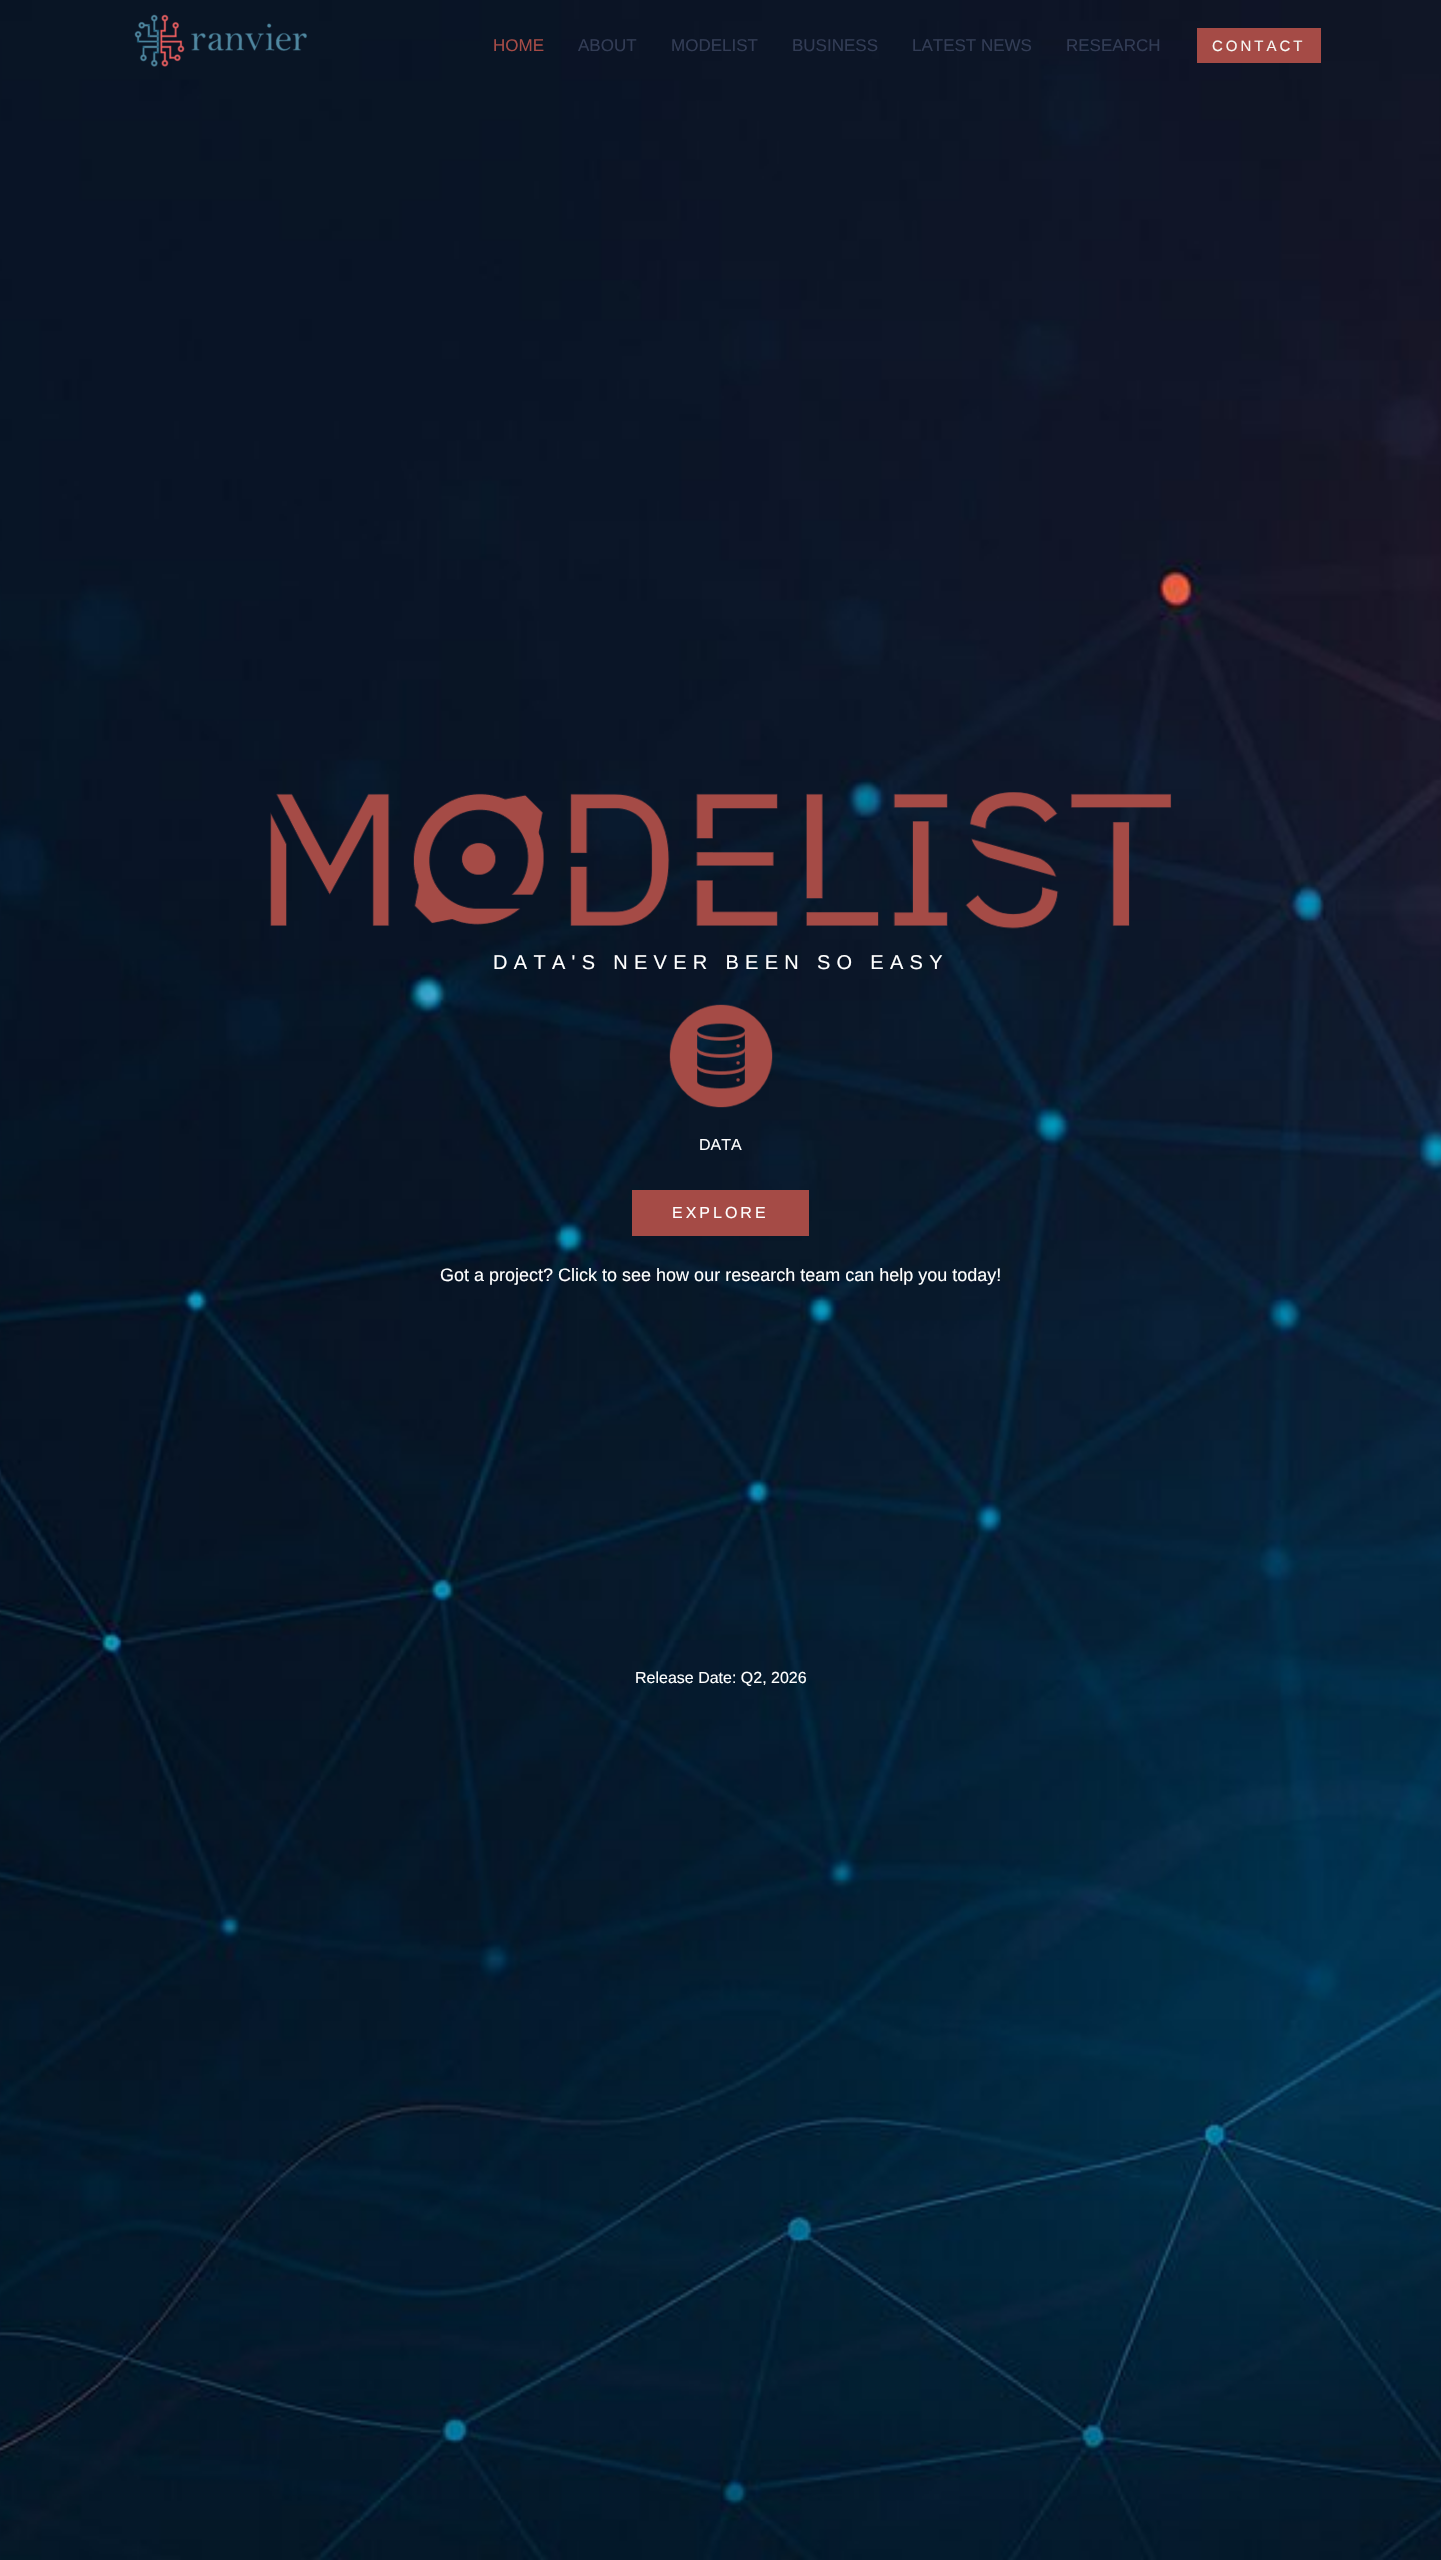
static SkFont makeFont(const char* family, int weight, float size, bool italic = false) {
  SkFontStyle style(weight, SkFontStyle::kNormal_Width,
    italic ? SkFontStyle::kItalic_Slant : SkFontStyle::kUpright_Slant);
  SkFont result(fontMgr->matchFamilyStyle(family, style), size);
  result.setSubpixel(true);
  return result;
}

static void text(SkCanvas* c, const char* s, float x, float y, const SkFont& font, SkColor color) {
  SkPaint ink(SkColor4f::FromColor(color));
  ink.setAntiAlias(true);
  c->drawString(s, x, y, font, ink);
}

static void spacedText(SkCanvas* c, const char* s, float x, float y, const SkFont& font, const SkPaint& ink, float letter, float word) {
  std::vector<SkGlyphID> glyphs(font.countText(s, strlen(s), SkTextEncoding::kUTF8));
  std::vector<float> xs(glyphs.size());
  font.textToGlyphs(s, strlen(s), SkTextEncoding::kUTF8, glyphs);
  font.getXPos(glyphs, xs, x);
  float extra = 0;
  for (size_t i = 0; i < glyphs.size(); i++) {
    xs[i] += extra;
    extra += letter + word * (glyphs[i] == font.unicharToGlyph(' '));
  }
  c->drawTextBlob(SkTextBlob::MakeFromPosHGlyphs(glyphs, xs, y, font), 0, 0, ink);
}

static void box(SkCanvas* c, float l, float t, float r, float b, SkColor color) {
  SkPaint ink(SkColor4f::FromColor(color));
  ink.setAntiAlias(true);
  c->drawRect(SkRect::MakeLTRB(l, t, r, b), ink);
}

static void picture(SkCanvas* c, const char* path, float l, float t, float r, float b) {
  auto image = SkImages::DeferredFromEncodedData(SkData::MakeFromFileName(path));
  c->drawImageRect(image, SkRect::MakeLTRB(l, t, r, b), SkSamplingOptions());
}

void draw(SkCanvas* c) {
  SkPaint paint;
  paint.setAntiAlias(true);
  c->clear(0xffffffff);
  picture(c, "img_02.png", 0, 0, 1441, 2560);
  picture(c, "img_01.png", 134, 14, 307, 67);
  SkFont face1 = makeFont("Liberation Sans", 400, 17);
  text(c, "HOME", 493, 51, face1, 0xffa54b46);
  text(c, "ABOUT", 578, 51, face1, 0xff323c55);
  text(c, "MODELIST", 671, 51, face1, 0xff323c55);
  text(c, "BUSINESS", 792, 51, face1, 0xff323c55);
  text(c, "LATEST NEWS", 912, 51, face1, 0xff323c55);
  text(c, "RESEARCH", 1066, 51, face1, 0xff323c55);
  box(c, 1197, 28, 1321, 63, 0xffa54b46);
  SkFont face2 = makeFont("Liberation Sans", 400, 15);
  paint.setColor(0xfff6f8f5);
  spacedText(c, "CONTACT", 1212, 51, face2, paint, 3, 0);
  picture(c, "img_03.png", 270, 792, 1172, 929);
  SkFont face3 = makeFont("Liberation Sans", 400, 20);
  paint.setColor(0xffffffff);
  spacedText(c, "DATA'S NEVER BEEN SO EASY", 493, 969, face3, paint, 6.3f, 0);
  picture(c, "img_04.png", 669, 1004, 773, 1108);
  SkFont face4 = makeFont("Liberation Sans", 400, 16);
  text(c, "DATA", 699, 1150, face4, 0xffffffff);
  box(c, 632, 1190, 809, 1236, 0xffa54b46);
  spacedText(c, "EXPLORE", 672, 1218, face4, paint, 3, 0);
  SkFont face5 = makeFont("Liberation Sans", 400, 18);
  text(c, "Got a project? Click to see how our research team can help you today!", 440, 1281, face5, 0xffffffff);
  text(c, "Release Date: Q2, 2026", 635, 1683, face4, 0xffffffff);
}
